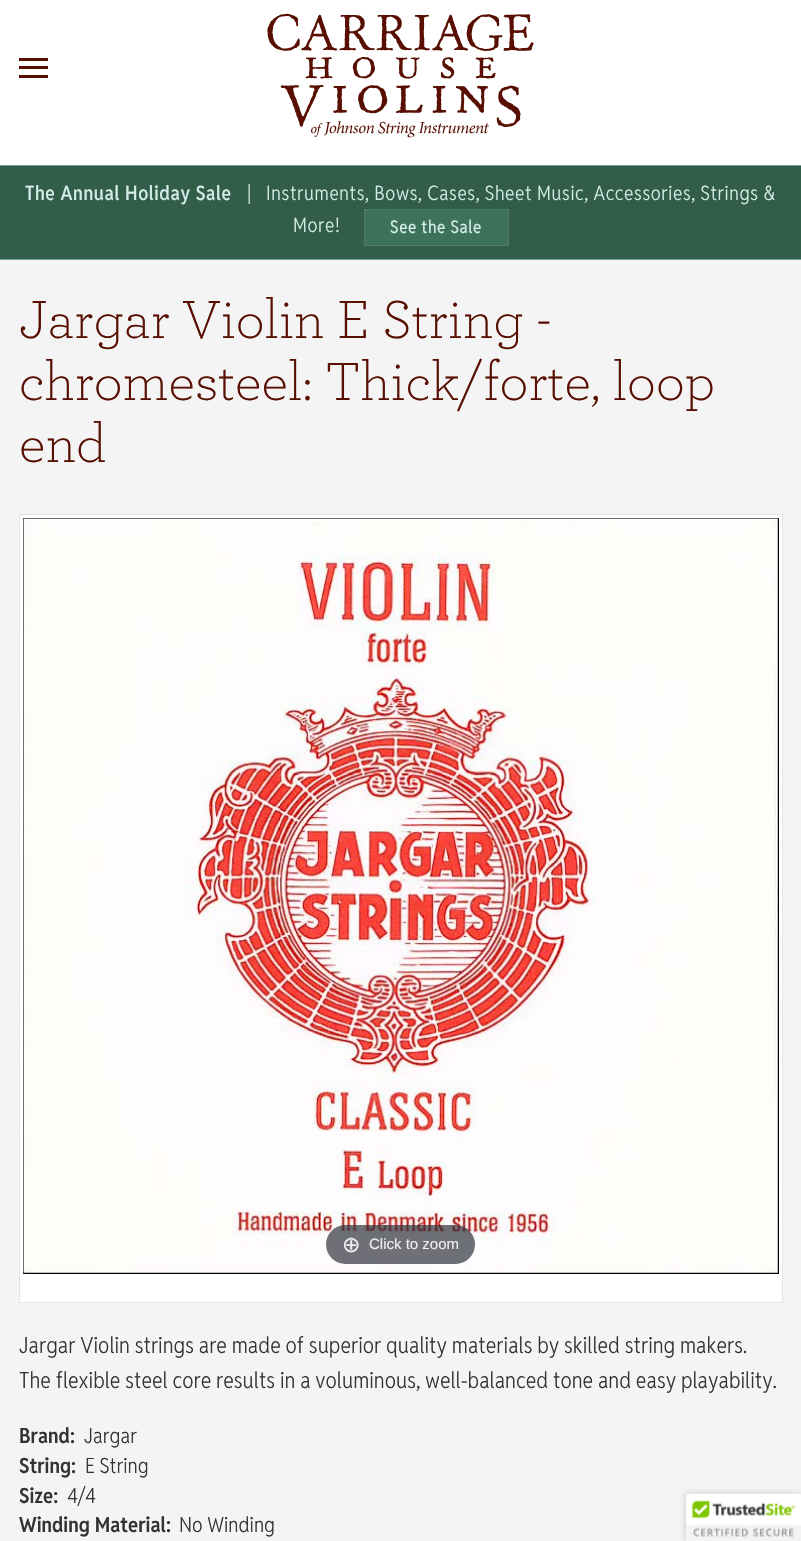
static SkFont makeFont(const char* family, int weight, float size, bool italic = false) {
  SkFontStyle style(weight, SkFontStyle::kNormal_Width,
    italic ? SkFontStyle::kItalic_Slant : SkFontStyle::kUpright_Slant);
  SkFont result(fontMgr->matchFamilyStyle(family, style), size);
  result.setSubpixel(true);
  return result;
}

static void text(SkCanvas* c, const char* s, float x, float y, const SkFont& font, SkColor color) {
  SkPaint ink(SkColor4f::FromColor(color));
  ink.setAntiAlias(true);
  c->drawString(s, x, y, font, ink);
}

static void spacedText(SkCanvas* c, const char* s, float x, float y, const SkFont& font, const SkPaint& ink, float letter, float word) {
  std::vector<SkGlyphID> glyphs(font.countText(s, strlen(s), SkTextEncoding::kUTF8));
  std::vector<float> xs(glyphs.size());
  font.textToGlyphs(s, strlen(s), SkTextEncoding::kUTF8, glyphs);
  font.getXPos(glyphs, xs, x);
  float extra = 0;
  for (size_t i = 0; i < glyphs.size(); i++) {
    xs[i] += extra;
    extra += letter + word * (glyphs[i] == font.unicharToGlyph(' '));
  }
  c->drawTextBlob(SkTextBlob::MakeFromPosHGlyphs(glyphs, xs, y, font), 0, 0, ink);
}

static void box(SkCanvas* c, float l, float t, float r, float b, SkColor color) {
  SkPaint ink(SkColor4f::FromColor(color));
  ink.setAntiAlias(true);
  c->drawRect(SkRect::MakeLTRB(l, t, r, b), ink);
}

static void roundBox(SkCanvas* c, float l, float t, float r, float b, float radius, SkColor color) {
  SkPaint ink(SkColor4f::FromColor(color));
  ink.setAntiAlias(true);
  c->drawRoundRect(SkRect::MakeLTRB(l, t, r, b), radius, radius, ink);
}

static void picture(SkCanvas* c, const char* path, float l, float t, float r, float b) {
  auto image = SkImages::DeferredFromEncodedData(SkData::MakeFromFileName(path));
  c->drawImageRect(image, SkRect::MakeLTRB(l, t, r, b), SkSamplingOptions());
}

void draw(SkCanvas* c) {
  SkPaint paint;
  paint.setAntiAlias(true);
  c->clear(0xfff4f4f4);
  box(c, 0, 0, 801, 165, 0xffffffff);
  box(c, 19, 66, 48, 69, 0xff580f02);
  box(c, 19, 58, 48, 61, 0xff580f02);
  box(c, 19, 75, 48, 78, 0xff580f02);
  picture(c, "img_01.png", 267, 13, 534, 138);
  box(c, 0, 166, 801, 259, 0xff325d48);
  box(c, 0, 165, 801, 166, 0xff68a791);
  box(c, 0, 259, 801, 260, 0xff68a791);
  SkFont face1 = makeFont("Reddit Sans Condensed", 500, 19.8f);
  paint.setColor(0xffd4edea);
  spacedText(c, "The Annual Holiday Sale", 25, 200, face1, paint, 0.6f, 0);
  SkFont face2 = makeFont("Reddit Sans Condensed", 300, 19.8f);
  spacedText(c, "|", 247, 200, face2, paint, 0.6f, 0);
  spacedText(c, "Instruments, Bows, Cases, Sheet Music, Accessories, Strings &", 266, 200, face2, paint, 0.6f, 0);
  spacedText(c, "More!", 293, 232, face2, paint, 0.6f, 0);
  paint.setColor(0xff3e725a);
  c->drawRect(SkRect::MakeLTRB(364.5f, 209.5f, 508.5f, 245.5f), paint);
  paint.setStyle(SkPaint::kStroke_Style);
  paint.setStrokeWidth(1);
  paint.setColor(0xff507c6e);
  c->drawRect(SkRect::MakeLTRB(364.5f, 209.5f, 508.5f, 245.5f), paint);
  SkFont face3 = makeFont("Reddit Sans Condensed", 400, 17.5f);
  paint.setStyle(SkPaint::kFill_Style);
  paint.setColor(0xffd4edea);
  spacedText(c, "See the Sale", 390, 233, face3, paint, 0.6f, 0);
  SkFont face4 = makeFont("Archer", 300, 56.25f);
  text(c, "Jargar Violin E String -", 19, 338, face4, 0xff580f02);
  text(c, "chromesteel: Thick/forte, loop", 19, 400, face4, 0xff580f02);
  text(c, "end", 19, 462, face4, 0xff580f02);
  paint.setColor(0xffffffff);
  c->drawRect(SkRect::MakeLTRB(19.5f, 514.5f, 782.5f, 1302.5f), paint);
  paint.setStyle(SkPaint::kStroke_Style);
  paint.setColor(0xffe4e4e4);
  c->drawRect(SkRect::MakeLTRB(19.5f, 514.5f, 782.5f, 1302.5f), paint);
  picture(c, "img_02.png", 23, 518, 779, 1274);
  roundBox(c, 326, 1225, 475, 1264, 19.5f, 0xb331333d);
  SkFont face5 = makeFont("DejaVu Sans", 400, 22);
  text(c, "⊕", 342, 1252, face5, 0xffeeeeee);
  SkFont face6 = makeFont("Liberation Sans", 400, 15);
  text(c, "Click to zoom", 369, 1249, face6, 0xffeeeeee);
  SkFont face7 = makeFont("Reddit Sans Condensed", 300, 22.4f);
  text(c, "Jargar Violin strings are made of superior quality materials by skilled string makers.", 19, 1353, face7, 0xff333333);
  text(c, "The flexible steel core results in a voluminous, well-balanced tone and easy playability.", 19, 1388, face7, 0xff333333);
  SkFont face8 = makeFont("Reddit Sans Condensed", 600, 21);
  text(c, "Brand:", 19, 1443, face8, 0xff333333);
  SkFont face9 = makeFont("Reddit Sans Condensed", 300, 21);
  text(c, "Jargar", 84, 1443, face9, 0xff333333);
  text(c, "String:", 19, 1473, face8, 0xff333333);
  text(c, "E String", 85, 1473, face9, 0xff333333);
  text(c, "Size:", 19, 1503, face8, 0xff333333);
  text(c, "4/4", 67, 1503, face9, 0xff333333);
  text(c, "Winding Material:", 19, 1532, face8, 0xff333333);
  text(c, "No Winding", 179, 1532, face9, 0xff333333);
  paint.setStyle(SkPaint::kFill_Style);
  paint.setColor(0x33000000);
  paint.setMaskFilter(SkMaskFilter::MakeBlur(kNormal_SkBlurStyle, 3));
  c->drawRoundRect(SkRect::MakeLTRB(686, 1494, 801, 1541), 2.5f, 2.5f, paint);
  paint.setMaskFilter(nullptr);
  paint.setColor(0xffffffff);
  c->drawPath(SkPathBuilder().moveTo(688.5f, 1494).lineTo(801, 1494).lineTo(801, 1541).lineTo(686, 1541).lineTo(686, 1496.5f).cubicTo(686, 1495, 687, 1494, 688.5f, 1494).close().detach(), paint);
  picture(c, "img_03.png", 686, 1493, 801, 1541);
}
